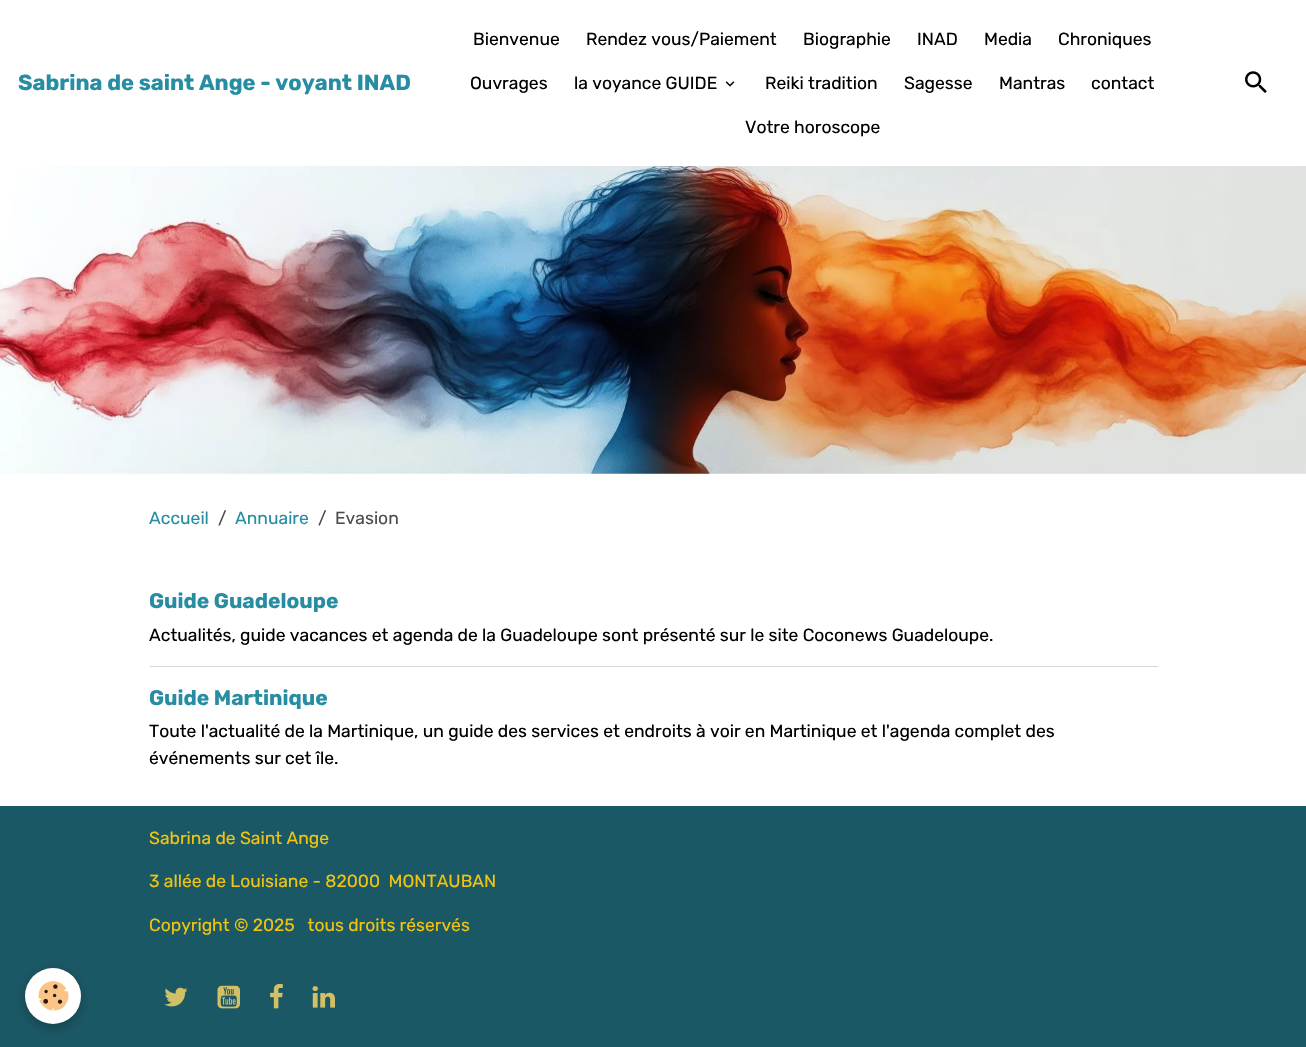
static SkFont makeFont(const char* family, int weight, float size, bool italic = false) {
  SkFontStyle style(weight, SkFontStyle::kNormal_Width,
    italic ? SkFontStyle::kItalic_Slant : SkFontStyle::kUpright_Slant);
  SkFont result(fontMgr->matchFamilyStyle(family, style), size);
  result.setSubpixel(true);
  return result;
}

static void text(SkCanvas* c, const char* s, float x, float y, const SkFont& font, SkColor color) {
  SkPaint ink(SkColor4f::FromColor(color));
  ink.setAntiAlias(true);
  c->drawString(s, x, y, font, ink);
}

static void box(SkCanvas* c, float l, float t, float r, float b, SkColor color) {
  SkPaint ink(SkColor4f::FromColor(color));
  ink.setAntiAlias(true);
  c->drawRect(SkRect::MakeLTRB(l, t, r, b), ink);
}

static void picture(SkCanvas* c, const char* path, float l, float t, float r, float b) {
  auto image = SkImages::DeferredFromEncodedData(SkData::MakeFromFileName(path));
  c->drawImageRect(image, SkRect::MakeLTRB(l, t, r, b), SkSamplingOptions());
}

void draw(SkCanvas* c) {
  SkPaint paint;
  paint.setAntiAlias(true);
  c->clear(0xffffffff);
  SkFont face1 = makeFont("Rubik", 700, 21.9f);
  text(c, "Sabrina de saint Ange - voyant INAD", 18, 90, face1, 0xff268da2);
  SkFont face2 = makeFont("Rubik", 400, 17.5f);
  text(c, "Bienvenue", 473, 45, face2, 0xff000000);
  text(c, "Rendez vous/Paiement", 586, 45, face2, 0xff000000);
  text(c, "Biographie", 803, 45, face2, 0xff000000);
  text(c, "INAD", 917, 45, face2, 0xff000000);
  text(c, "Media", 984, 45, face2, 0xff000000);
  text(c, "Chroniques", 1058, 45, face2, 0xff000000);
  text(c, "Ouvrages", 470, 89, face2, 0xff000000);
  text(c, "la voyance GUIDE", 574, 89, face2, 0xff000000);
  picture(c, "img_01.png", 725, 81, 735, 87);
  text(c, "Reiki tradition", 765, 89, face2, 0xff000000);
  text(c, "Sagesse", 904, 89, face2, 0xff000000);
  text(c, "Mantras", 999, 89, face2, 0xff000000);
  text(c, "contact", 1091, 89, face2, 0xff000000);
  text(c, "Votre horoscope", 745, 133, face2, 0xff000000);
  picture(c, "img_02.png", 1245, 71, 1267, 93);
  picture(c, "img_03.png", 0, 166, 1306, 474);
  text(c, "Accueil", 149, 524, face2, 0xff268da2);
  text(c, "/", 218, 524, face2, 0xff4d4d4d);
  text(c, "Annuaire", 235, 524, face2, 0xff268da2);
  text(c, "/", 318, 524, face2, 0xff4d4d4d);
  text(c, "Evasion", 335, 524, face2, 0xff4d4d4d);
  SkFont face3 = makeFont("Rubik", 700, 21);
  text(c, "Guide Guadeloupe", 149, 608, face3, 0xff268da2);
  text(c, "Actualités, guide vacances et agenda de la Guadeloupe sont présenté sur le site Coconews Guadeloupe.", 149, 641, face2, 0xff000000);
  box(c, 150, 666, 1158, 667, 0xffd7d7d7);
  text(c, "Guide Martinique", 149, 705, face3, 0xff268da2);
  text(c, "Toute l'actualité de la Martinique, un guide des services et endroits à voir en Martinique et l'agenda complet des", 149, 737, face2, 0xff000000);
  text(c, "événements sur cet île.", 149, 764, face2, 0xff000000);
  box(c, 0, 806, 1306, 1047, 0xff1b5865);
  text(c, "Sabrina de Saint Ange", 149, 844, face2, 0xfff1c40f);
  text(c, "3 allée de Louisiane - 82000  MONTAUBAN", 149, 887, face2, 0xfff1c40f);
  text(c, "Copyright © 2025   tous droits réservés", 149, 931, face2, 0xfff1c40f);
  picture(c, "img_04.png", 164, 987, 188, 1007);
  picture(c, "img_05.png", 217, 985, 240, 1009);
  picture(c, "img_06.png", 270, 983, 283, 1009);
  picture(c, "img_07.png", 312, 986, 335, 1008);
  paint.setColor(0x3d000000);
  paint.setMaskFilter(SkMaskFilter::MakeBlur(kNormal_SkBlurStyle, 6));
  c->drawRoundRect(SkRect::MakeLTRB(25, 971, 81, 1028), 28, 28, paint);
  paint.setMaskFilter(nullptr);
  paint.setColor(0xffffffff);
  c->drawCircle(53, 996, 28, paint);
  picture(c, "img_08.png", 38, 981, 69, 1011);
}
